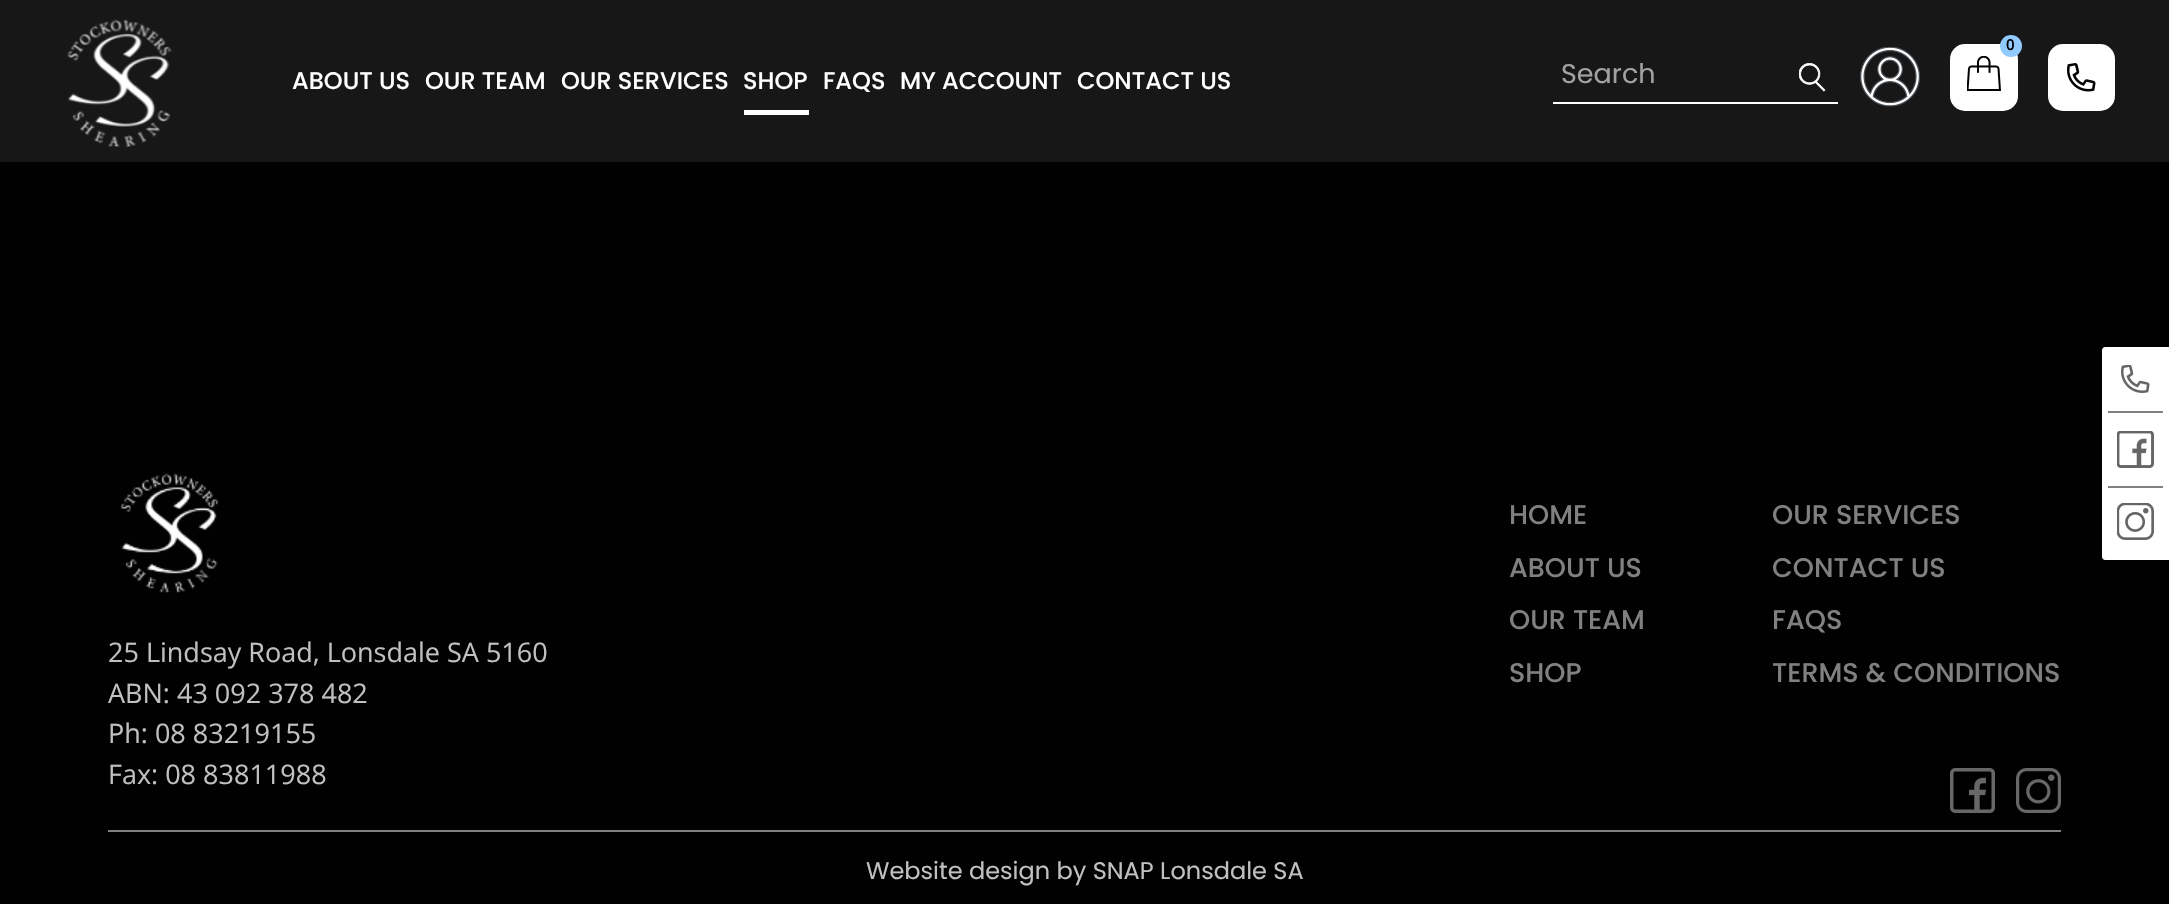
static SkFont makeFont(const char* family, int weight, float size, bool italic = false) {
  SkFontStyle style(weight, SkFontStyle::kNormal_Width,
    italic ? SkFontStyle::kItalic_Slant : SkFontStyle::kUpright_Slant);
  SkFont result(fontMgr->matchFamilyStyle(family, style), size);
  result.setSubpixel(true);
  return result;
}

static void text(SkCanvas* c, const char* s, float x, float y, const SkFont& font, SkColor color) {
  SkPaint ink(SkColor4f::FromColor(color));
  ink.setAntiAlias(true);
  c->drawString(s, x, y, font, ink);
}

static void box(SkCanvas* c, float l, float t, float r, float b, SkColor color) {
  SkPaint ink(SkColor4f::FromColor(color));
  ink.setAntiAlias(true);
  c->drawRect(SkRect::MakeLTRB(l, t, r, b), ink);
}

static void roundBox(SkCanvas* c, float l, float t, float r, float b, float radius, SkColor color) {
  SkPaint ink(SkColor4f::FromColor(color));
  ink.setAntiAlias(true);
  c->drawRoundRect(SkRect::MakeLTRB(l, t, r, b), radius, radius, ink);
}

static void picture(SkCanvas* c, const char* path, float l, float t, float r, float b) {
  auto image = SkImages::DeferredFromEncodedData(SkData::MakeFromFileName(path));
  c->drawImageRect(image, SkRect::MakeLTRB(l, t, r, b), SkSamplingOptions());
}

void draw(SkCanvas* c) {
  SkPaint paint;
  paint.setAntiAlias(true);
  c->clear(0xff010101);
  box(c, 0, 0, 2169, 162, 0xff171717);
  picture(c, "img_01.png", 67, 19, 172, 147);
  SkFont face1 = makeFont("Poppins", 500, 24);
  text(c, "ABOUT US", 292, 89, face1, 0xffffffff);
  text(c, "OUR TEAM", 425, 89, face1, 0xffffffff);
  text(c, "OUR SERVICES", 561, 89, face1, 0xffffffff);
  text(c, "SHOP", 743, 89, face1, 0xffffffff);
  box(c, 744, 110, 809, 115, 0xffffffff);
  text(c, "FAQS", 823, 89, face1, 0xffffffff);
  text(c, "MY ACCOUNT", 900, 89, face1, 0xffffffff);
  text(c, "CONTACT US", 1077, 89, face1, 0xffffffff);
  box(c, 1553, 102, 1838, 104, 0xffffffff);
  SkFont face2 = makeFont("Poppins", 400, 27);
  text(c, "Search", 1561, 83, face2, 0xffa2a2a2);
  picture(c, "img_02.png", 1799, 63, 1826, 92);
  picture(c, "img_03.png", 1860, 47, 1920, 107);
  roundBox(c, 1950, 44, 2018, 111, 15, 0xffffffff);
  picture(c, "img_04.png", 1967, 56, 2001, 91);
  paint.setColor(0xff90caff);
  c->drawCircle(2011, 46, 11, paint);
  SkFont face3 = makeFont("Open Sans", 600, 15);
  text(c, "0", 2006, 50, face3, 0xff010101);
  roundBox(c, 2048, 44, 2115, 111, 15, 0xffffffff);
  picture(c, "img_05.png", 2067, 63, 2096, 92);
  paint.setColor(0xffffffff);
  c->drawPath(SkPathBuilder().moveTo(2105, 347).lineTo(2169, 347).lineTo(2169, 413).lineTo(2102, 413).lineTo(2102, 350).cubicTo(2102, 348.5f, 2103.5f, 347, 2105, 347).close().detach(), paint);
  picture(c, "img_06.png", 2121, 365, 2150, 393);
  box(c, 2108, 411, 2163, 413, 0xff808080);
  box(c, 2102, 413, 2169, 488, 0xffffffff);
  picture(c, "img_07.png", 2117, 431, 2154, 468);
  box(c, 2108, 486, 2163, 488, 0xff808080);
  c->drawPath(SkPathBuilder().moveTo(2102, 488).lineTo(2169, 488).lineTo(2169, 560).lineTo(2105, 560).cubicTo(2103.5f, 560, 2102, 558.5f, 2102, 557).close().detach(), paint);
  picture(c, "img_08.png", 2117, 503, 2154, 540);
  SkFont face4 = makeFont("Poppins", 500, 27);
  text(c, "HOME", 1509, 524, face4, 0xff808080);
  text(c, "ABOUT US", 1509, 577, face4, 0xff808080);
  text(c, "OUR TEAM", 1509, 629, face4, 0xff808080);
  text(c, "SHOP", 1509, 682, face4, 0xff808080);
  text(c, "OUR SERVICES", 1772, 524, face4, 0xff808080);
  text(c, "CONTACT US", 1772, 577, face4, 0xff808080);
  text(c, "FAQS", 1772, 629, face4, 0xff808080);
  text(c, "TERMS & CONDITIONS", 1772, 682, face4, 0xff808080);
  picture(c, "img_09.png", 1950, 768, 1995, 813);
  picture(c, "img_10.png", 2016, 768, 2061, 813);
  picture(c, "img_11.png", 120, 473, 219, 593);
  SkFont face5 = makeFont("Open Sans", 400, 27);
  text(c, "25 Lindsay Road, Lonsdale SA 5160", 108, 662, face5, 0xffc0c0c0);
  text(c, "ABN: 43 092 378 482", 108, 703, face5, 0xffc0c0c0);
  text(c, "Ph: 08 83219155", 108, 743, face5, 0xffc0c0c0);
  text(c, "Fax: 08 83811988", 108, 784, face5, 0xffc0c0c0);
  box(c, 108, 830, 2061, 832, 0xff808080);
  SkFont face6 = makeFont("Poppins", 400, 24);
  text(c, "Website design by SNAP Lonsdale SA", 866, 879, face6, 0xffc0c0c0);
}
